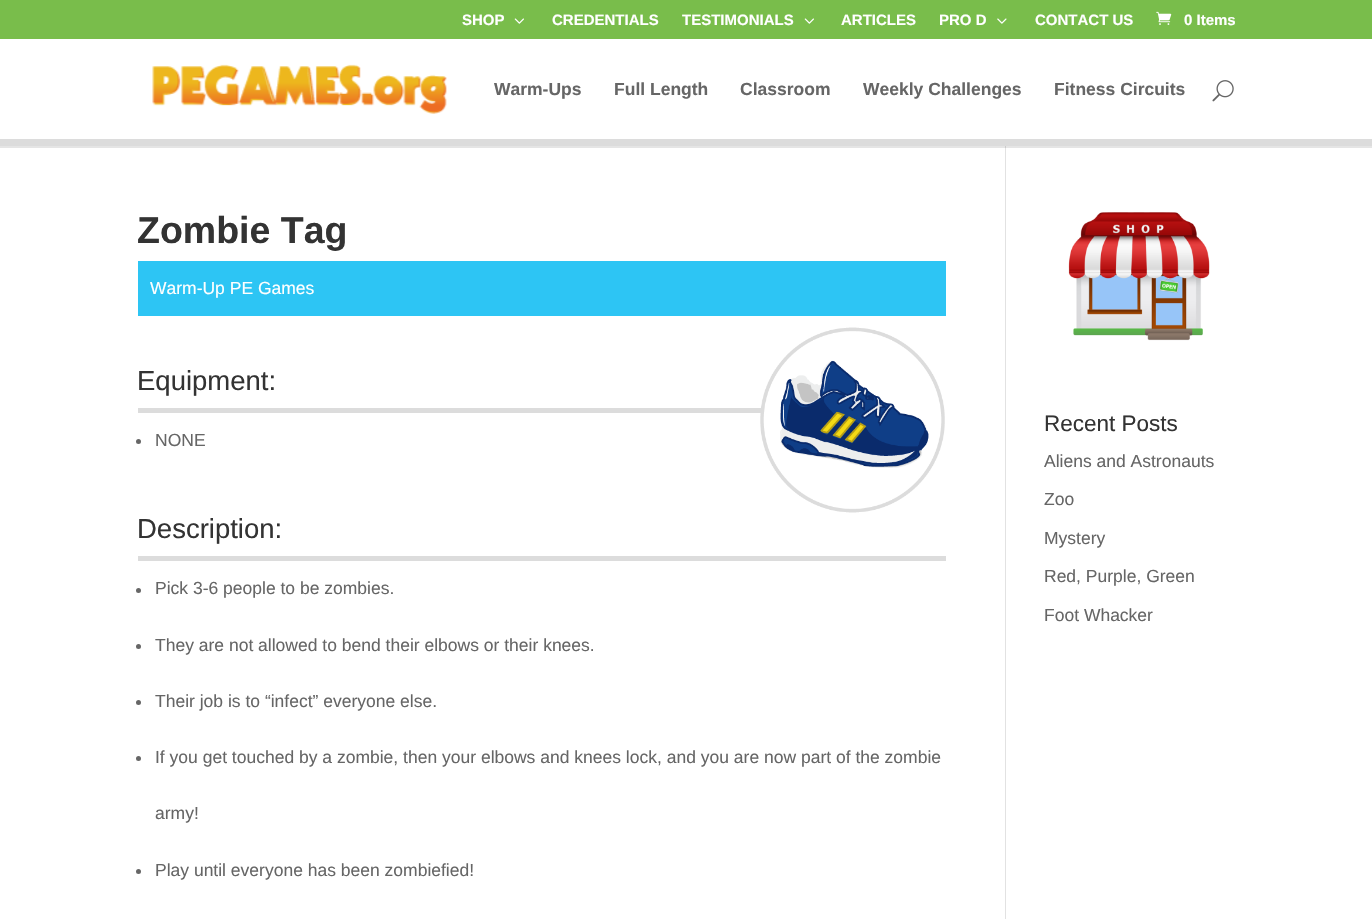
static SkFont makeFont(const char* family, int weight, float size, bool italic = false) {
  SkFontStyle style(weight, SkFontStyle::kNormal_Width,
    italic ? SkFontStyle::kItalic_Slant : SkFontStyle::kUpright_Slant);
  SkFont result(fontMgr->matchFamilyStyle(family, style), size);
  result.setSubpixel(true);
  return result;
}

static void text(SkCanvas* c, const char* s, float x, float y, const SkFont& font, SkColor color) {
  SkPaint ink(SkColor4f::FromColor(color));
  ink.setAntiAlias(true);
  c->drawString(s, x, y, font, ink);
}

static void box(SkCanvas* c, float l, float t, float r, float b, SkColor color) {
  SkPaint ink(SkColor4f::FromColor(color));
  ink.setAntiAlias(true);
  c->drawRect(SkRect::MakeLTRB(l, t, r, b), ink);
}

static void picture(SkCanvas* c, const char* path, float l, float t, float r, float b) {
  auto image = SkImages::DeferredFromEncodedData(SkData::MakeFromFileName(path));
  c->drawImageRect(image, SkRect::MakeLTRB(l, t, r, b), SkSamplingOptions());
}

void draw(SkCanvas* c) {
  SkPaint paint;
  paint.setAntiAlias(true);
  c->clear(0xffffffff);
  box(c, 0, 0, 1372, 39, 0xff79bd4b);
  SkFont face1 = makeFont("Liberation Sans", 700, 15);
  text(c, "SHOP", 462, 25, face1, 0xffffffff);
  picture(c, "img_01.png", 514, 18, 524, 24);
  text(c, "CREDENTIALS", 552, 25, face1, 0xffffffff);
  text(c, "TESTIMONIALS", 682, 25, face1, 0xffffffff);
  picture(c, "img_01.png", 804, 18, 814, 24);
  text(c, "ARTICLES", 841, 25, face1, 0xffffffff);
  text(c, "PRO D", 939, 25, face1, 0xffffffff);
  picture(c, "img_02.png", 997, 18, 1007, 24);
  text(c, "CONTACT US", 1035, 25, face1, 0xffffffff);
  picture(c, "img_03.png", 1156, 11, 1172, 25);
  text(c, "0 Items", 1184, 25, face1, 0xffffffff);
  box(c, 1005, 139, 1006, 919, 0xffe2e2e2);
  paint.setColor(0x1a000000);
  c->drawPath(SkPathBuilder().moveTo(0, 146).lineTo(0, 148).lineTo(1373, 148).lineTo(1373, 40).lineTo(1372, 40).lineTo(1372, 146).close().detach(), paint);
  box(c, 0, 139, 1372, 146, 0xffdcdcdc);
  picture(c, "img_04.png", 152, 64, 447, 114);
  SkFont face2 = makeFont("Liberation Sans", 700, 17.5f);
  text(c, "Warm-Ups", 494, 95, face2, 0xff666666);
  text(c, "Full Length", 614, 95, face2, 0xff666666);
  text(c, "Classroom", 740, 95, face2, 0xff666666);
  text(c, "Weekly Challenges", 863, 95, face2, 0xff666666);
  text(c, "Fitness Circuits", 1054, 95, face2, 0xff666666);
  picture(c, "img_05.png", 1212, 80, 1234, 102);
  SkFont face3 = makeFont("Liberation Sans", 700, 37.5f);
  text(c, "Zombie Tag", 137, 243, face3, 0xff333333);
  box(c, 138, 261, 946, 316, 0xff2dc5f4);
  SkFont face4 = makeFont("Liberation Sans", 400, 17.5f);
  text(c, "Warm-Up PE Games", 150, 294, face4, 0xffffffff);
  box(c, 138, 408, 761, 413, 0xffdcdcdc);
  picture(c, "img_06.png", 760, 327, 946, 513);
  SkFont face5 = makeFont("Liberation Sans", 400, 27.5f);
  text(c, "Equipment:", 137, 390, face5, 0xff333333);
  paint.setColor(0xff666666);
  c->drawCircle(138.5f, 441.5f, 2.5f, paint);
  text(c, "NONE", 155, 446, face4, 0xff666666);
  box(c, 138, 556, 946, 561, 0xffdcdcdc);
  text(c, "Description:", 137, 538, face5, 0xff333333);
  c->drawCircle(138.5f, 590.5f, 2.5f, paint);
  text(c, "Pick 3-6 people to be zombies.", 155, 594, face4, 0xff666666);
  c->drawCircle(138.5f, 646.5f, 2.5f, paint);
  text(c, "They are not allowed to bend their elbows or their knees.", 155, 651, face4, 0xff666666);
  c->drawCircle(138.5f, 702.5f, 2.5f, paint);
  text(c, "Their job is to “infect” everyone else.", 155, 707, face4, 0xff666666);
  c->drawCircle(138.5f, 758.5f, 2.5f, paint);
  text(c, "If you get touched by a zombie, then your elbows and knees lock, and you are now part of the zombie", 155, 763, face4, 0xff666666);
  text(c, "army!", 155, 819, face4, 0xff666666);
  c->drawCircle(138.5f, 871.5f, 2.5f, paint);
  text(c, "Play until everyone has been zombiefied!", 155, 876, face4, 0xff666666);
  picture(c, "img_07.png", 1068, 212, 1210, 341);
  SkFont face6 = makeFont("Liberation Sans", 400, 22.5f);
  text(c, "Recent Posts", 1044, 431, face6, 0xff333333);
  text(c, "Aliens and Astronauts", 1044, 467, face4, 0xff666666);
  text(c, "Zoo", 1044, 505, face4, 0xff666666);
  text(c, "Mystery", 1044, 544, face4, 0xff666666);
  text(c, "Red, Purple, Green", 1044, 582, face4, 0xff666666);
  text(c, "Foot Whacker", 1044, 621, face4, 0xff666666);
}
